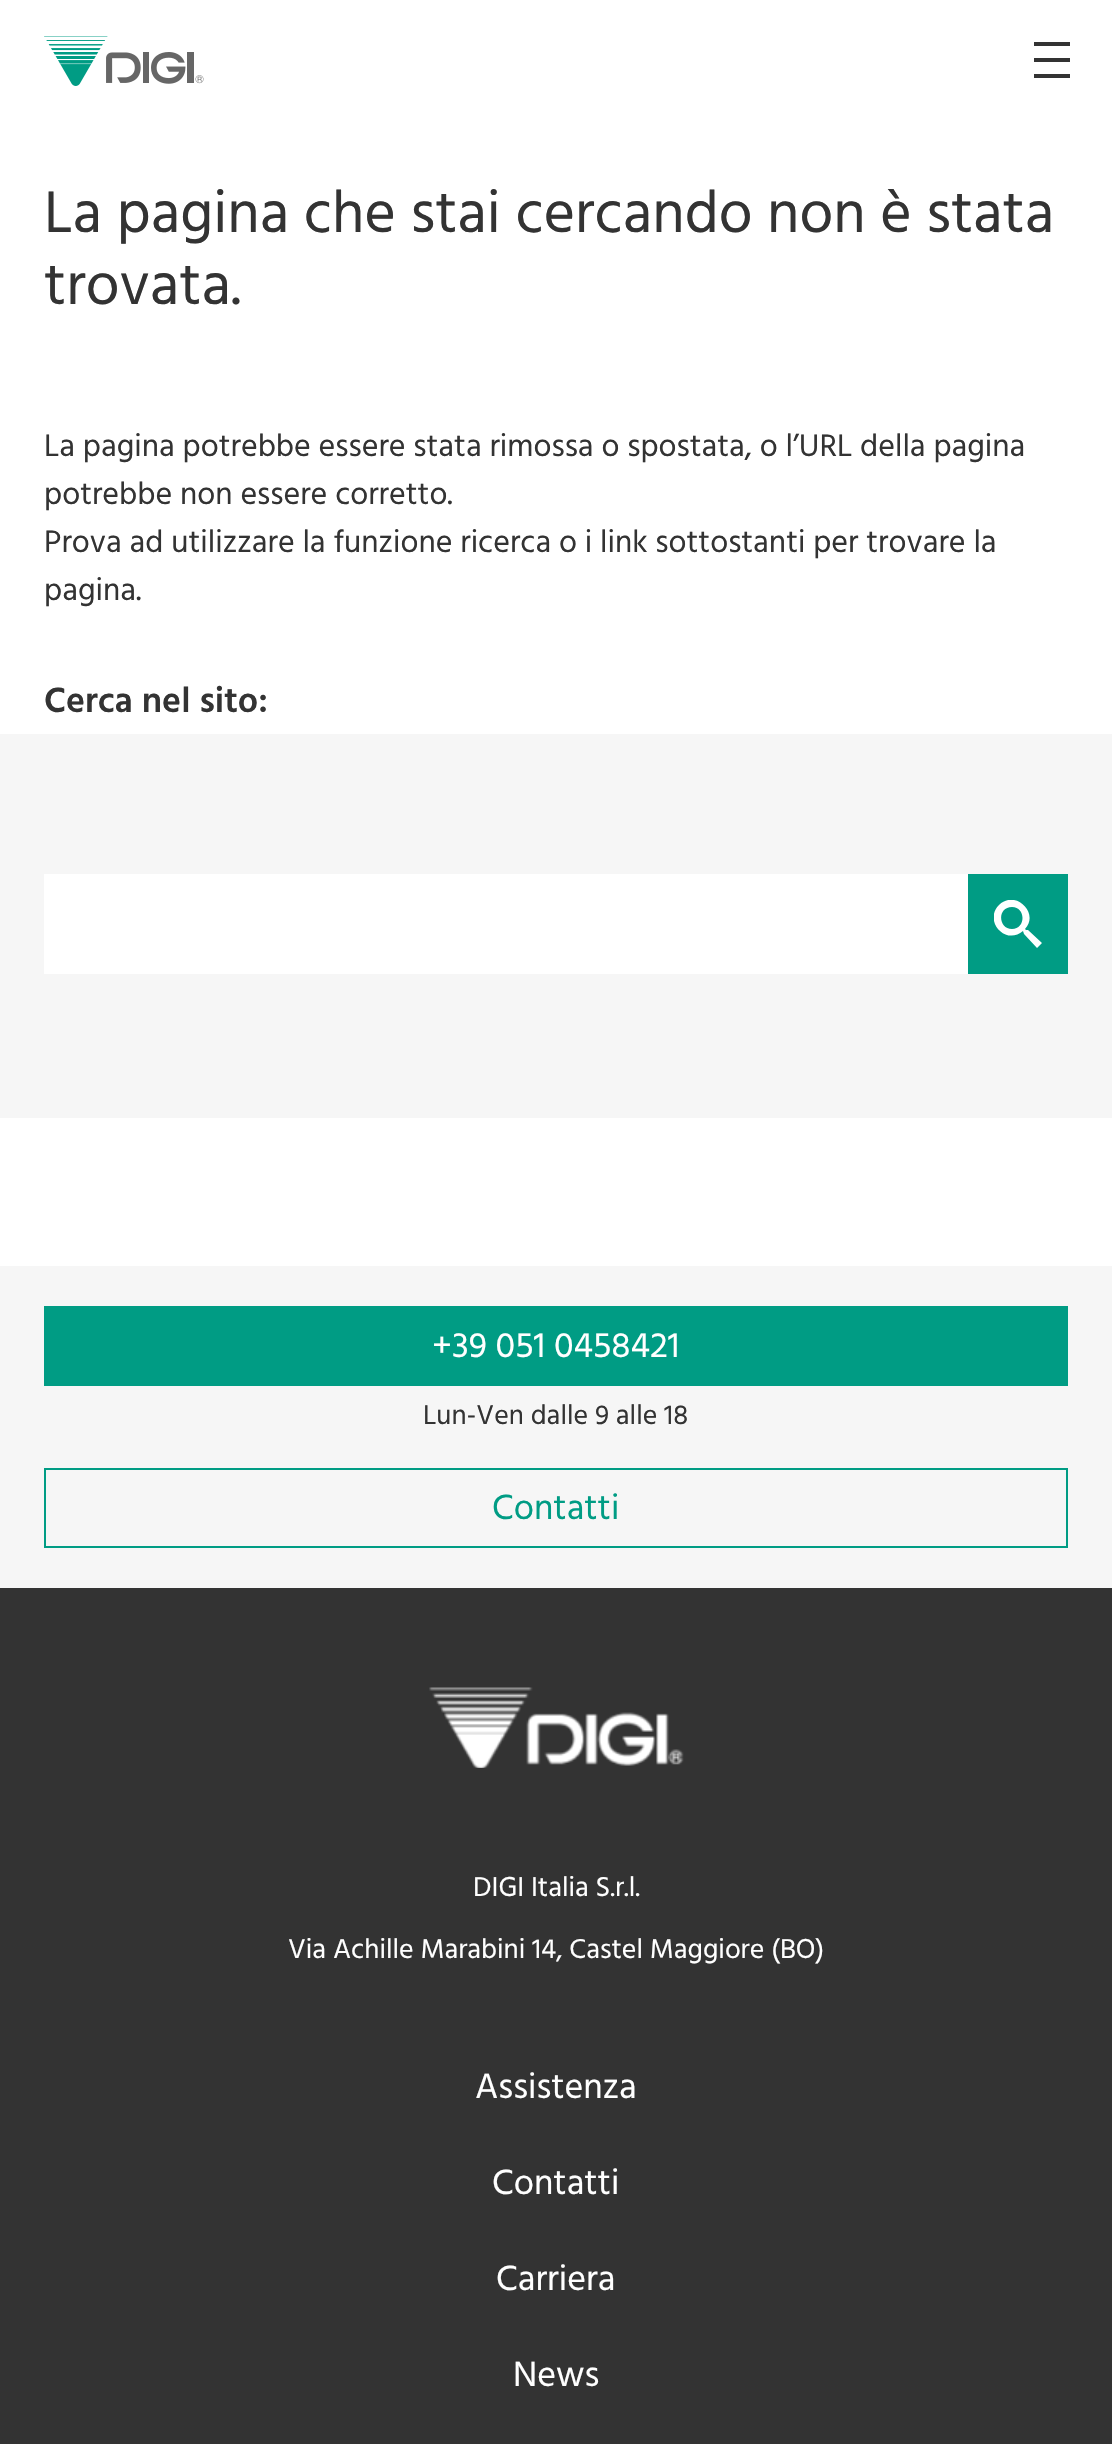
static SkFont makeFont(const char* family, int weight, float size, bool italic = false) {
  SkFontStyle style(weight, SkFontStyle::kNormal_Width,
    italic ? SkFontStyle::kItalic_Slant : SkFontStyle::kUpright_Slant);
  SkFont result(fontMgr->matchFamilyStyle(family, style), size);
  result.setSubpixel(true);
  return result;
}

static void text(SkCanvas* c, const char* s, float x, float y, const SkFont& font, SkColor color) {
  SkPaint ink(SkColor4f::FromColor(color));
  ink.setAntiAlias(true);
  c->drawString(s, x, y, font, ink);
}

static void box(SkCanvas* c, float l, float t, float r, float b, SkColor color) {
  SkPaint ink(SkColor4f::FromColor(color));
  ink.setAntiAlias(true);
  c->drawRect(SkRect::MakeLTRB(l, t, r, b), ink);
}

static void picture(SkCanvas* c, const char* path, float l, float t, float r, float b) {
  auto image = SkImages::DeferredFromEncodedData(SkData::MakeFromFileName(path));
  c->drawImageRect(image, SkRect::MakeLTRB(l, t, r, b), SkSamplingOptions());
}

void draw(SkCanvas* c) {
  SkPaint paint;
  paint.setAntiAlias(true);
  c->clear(0xffffffff);
  picture(c, "img_01.png", 44, 36, 204, 86);
  box(c, 1034, 42, 1070, 46, 0xff333333);
  box(c, 1034, 58, 1070, 62, 0xff333333);
  box(c, 1034, 74, 1070, 78, 0xff333333);
  SkFont face1 = makeFont("Hind", 400, 60);
  text(c, "La pagina che stai cercando non è stata", 44, 232, face1, 0xff333333);
  text(c, "trovata.", 44, 304, face1, 0xff333333);
  SkFont face2 = makeFont("Hind", 400, 32);
  text(c, "La pagina potrebbe essere stata rimossa o spostata, o l’URL della pagina", 44, 456, face2, 0xff333333);
  text(c, "potrebbe non essere corretto.", 44, 504, face2, 0xff333333);
  text(c, "Prova ad utilizzare la funzione ricerca o i link sottostanti per trovare la", 44, 552, face2, 0xff333333);
  text(c, "pagina.", 44, 600, face2, 0xff333333);
  SkFont face3 = makeFont("Hind", 600, 36);
  text(c, "Cerca nel sito:", 44, 712, face3, 0xff333333);
  box(c, 0, 734, 1112, 1118, 0xfff6f6f6);
  box(c, 44, 874, 968, 974, 0xffffffff);
  box(c, 968, 874, 1068, 974, 0xff009c84);
  c->save();
  c->clipRect(SkRect::MakeLTRB(994, 900, 1042, 948));
  paint.setColor(0xffffffff);
  c->drawPath(SkPathBuilder().moveTo(1012, 929).cubicTo(1026, 929, 1026, 907, 1012, 907).cubicTo(997, 907, 998, 929, 1012, 929).close().moveTo(1028, 930).lineTo(1042, 943).lineTo(1037, 948).lineTo(1024, 934).lineTo(1023, 931).cubicTo(1006, 946, 983, 921, 999, 905).cubicTo(1015, 889, 1040, 913, 1025, 929).lineTo(1026, 930).close().detach(), paint);
  c->restore();
  box(c, 0, 1266, 1112, 1588, 0xfff6f6f6);
  box(c, 44, 1306, 1068, 1386, 0xff009c84);
  SkFont face4 = makeFont("Hind", 400, 36);
  text(c, "+39 051 0458421", 432, 1357, face4, 0xffffffff);
  SkFont face5 = makeFont("Hind", 400, 28);
  text(c, "Lun-Ven dalle 9 alle 18", 423, 1424, face5, 0xff333333);
  paint.setStyle(SkPaint::kStroke_Style);
  paint.setStrokeWidth(2);
  paint.setColor(0xff009c84);
  c->drawRect(SkRect::MakeLTRB(45, 1469, 1067, 1547), paint);
  text(c, "Contatti", 492, 1519, face4, 0xff009c84);
  box(c, 0, 1588, 1112, 2444, 0xff333333);
  picture(c, "img_02.png", 429, 1687, 684, 1768);
  text(c, "DIGI Italia S.r.l.", 473, 1896, face5, 0xffffffff);
  text(c, "Via Achille Marabini 14, Castel Maggiore (BO)", 288, 1958, face5, 0xffffffff);
  text(c, "Assistenza", 475, 2098, face4, 0xffffffff);
  text(c, "Contatti", 492, 2194, face4, 0xffffffff);
  text(c, "Carriera", 496, 2290, face4, 0xffffffff);
  text(c, "News", 513, 2386, face4, 0xffffffff);
}
